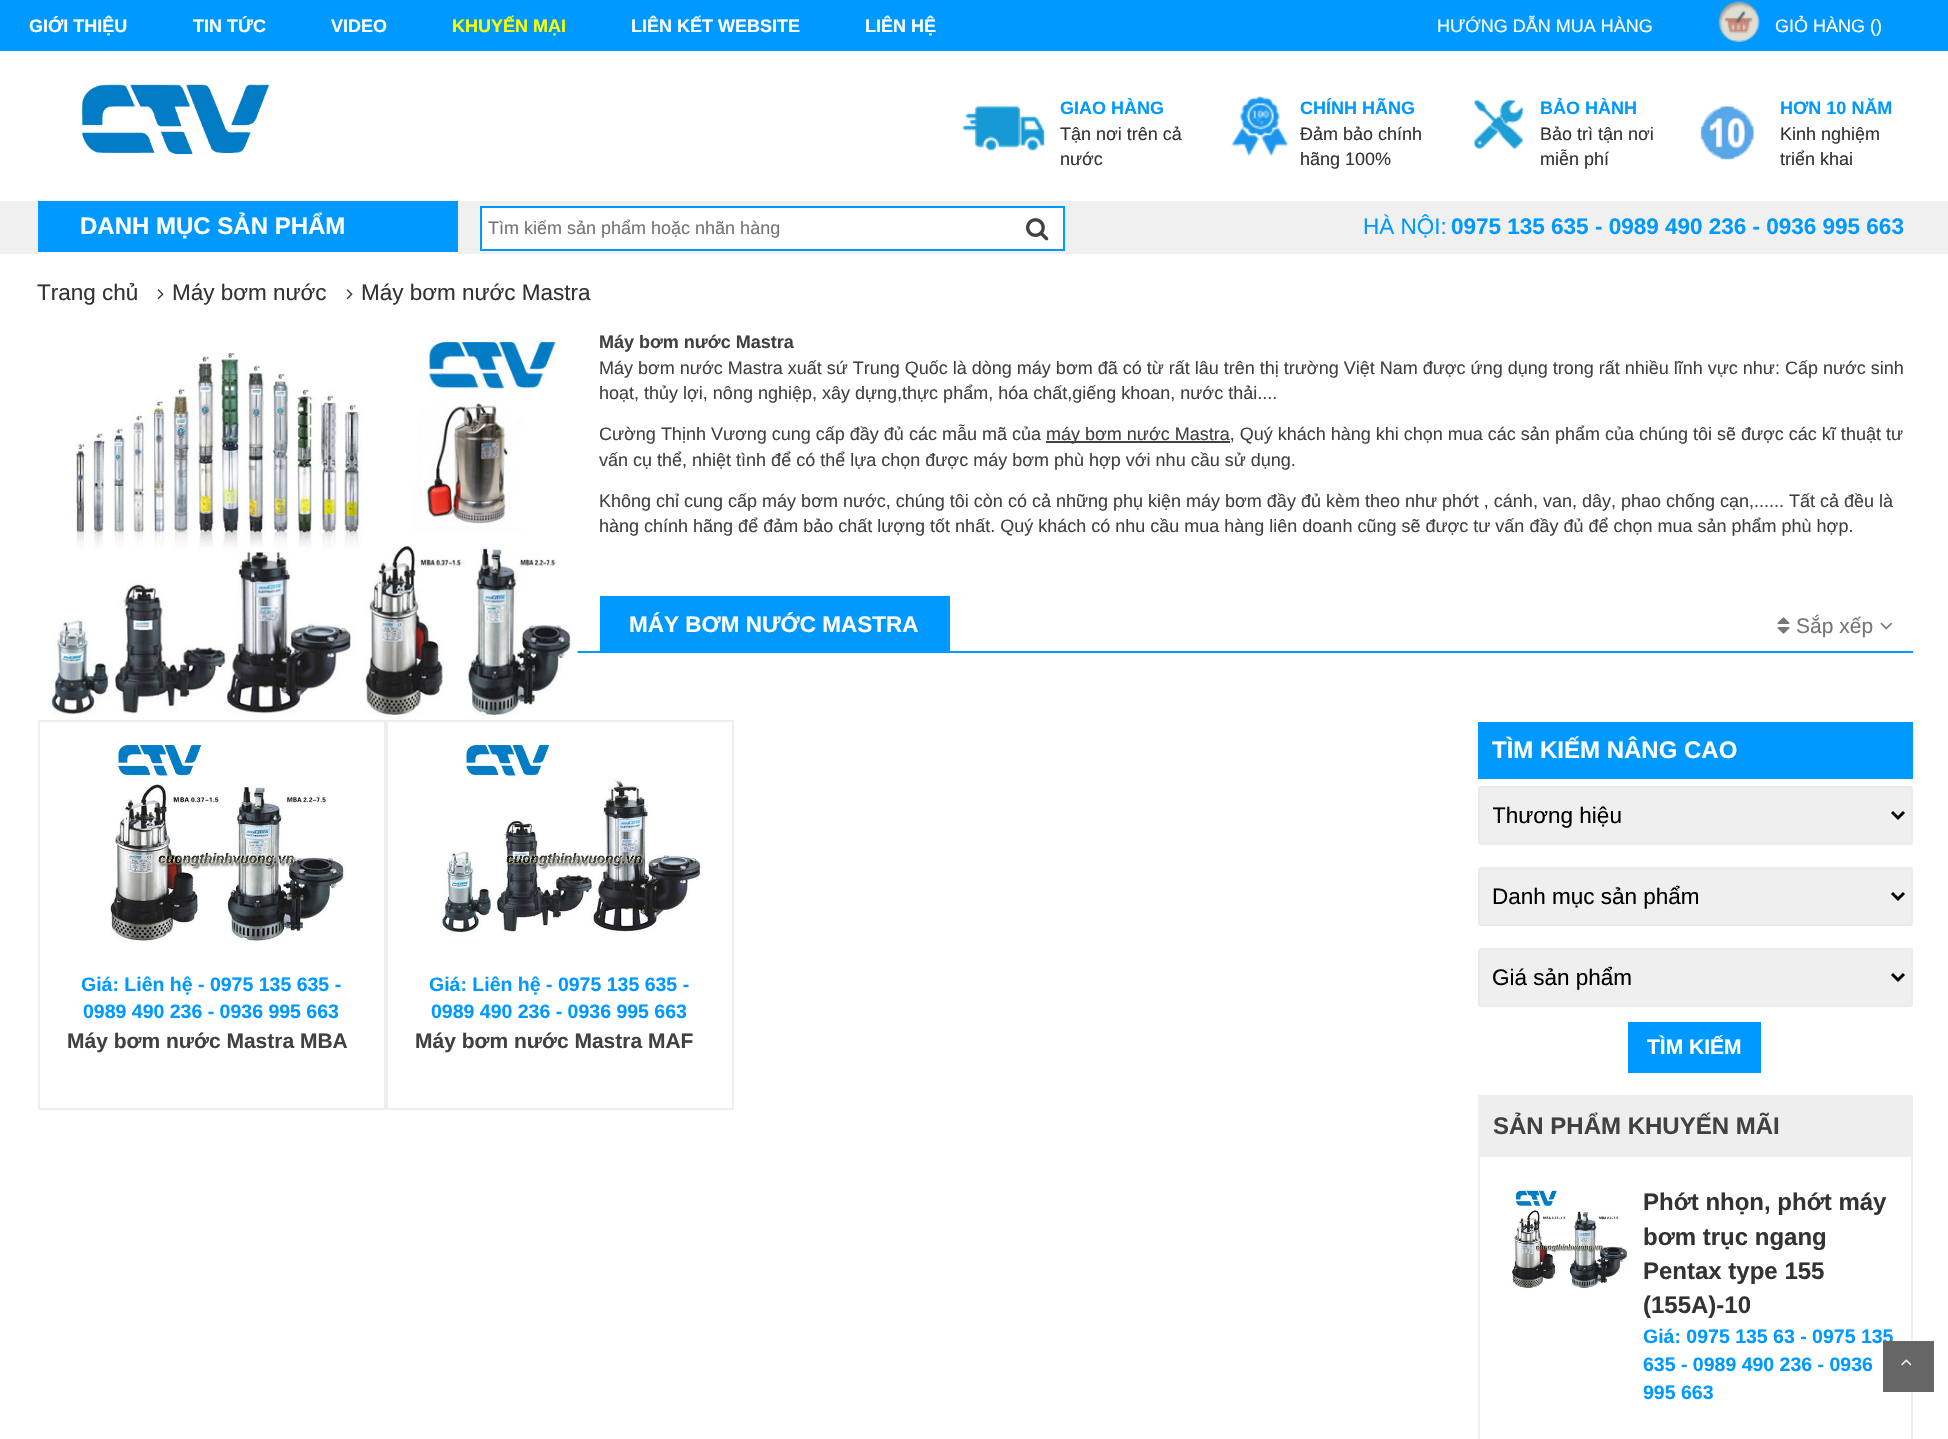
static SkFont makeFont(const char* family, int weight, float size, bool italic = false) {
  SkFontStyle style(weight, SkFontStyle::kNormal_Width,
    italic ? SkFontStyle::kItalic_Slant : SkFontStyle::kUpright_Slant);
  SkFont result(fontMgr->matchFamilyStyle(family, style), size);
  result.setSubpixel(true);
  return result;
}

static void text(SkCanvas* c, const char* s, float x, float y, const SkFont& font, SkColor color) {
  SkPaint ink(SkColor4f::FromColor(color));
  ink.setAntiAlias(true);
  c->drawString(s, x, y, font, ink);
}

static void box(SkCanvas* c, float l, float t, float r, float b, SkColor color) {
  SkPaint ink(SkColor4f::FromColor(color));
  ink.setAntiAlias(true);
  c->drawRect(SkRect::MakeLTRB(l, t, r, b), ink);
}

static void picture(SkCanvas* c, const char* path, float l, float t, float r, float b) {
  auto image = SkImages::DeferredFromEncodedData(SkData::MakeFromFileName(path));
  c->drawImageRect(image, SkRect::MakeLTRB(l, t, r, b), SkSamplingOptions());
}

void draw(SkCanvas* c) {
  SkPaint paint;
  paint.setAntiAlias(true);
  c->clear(0xffffffff);
  box(c, 0, 0, 1948, 51, 0xff0099ff);
  SkFont face1 = makeFont("Liberation Sans", 700, 18);
  text(c, "GIỚI THIỆU", 29, 32, face1, 0xffffffff);
  text(c, "TIN TỨC", 193, 32, face1, 0xffffffff);
  text(c, "VIDEO", 331, 32, face1, 0xffffffff);
  text(c, "KHUYẾN MẠI", 452, 32, face1, 0xffffff00);
  text(c, "LIÊN KẾT WEBSITE", 631, 32, face1, 0xffffffff);
  text(c, "LIÊN HỆ", 865, 32, face1, 0xffffffff);
  SkFont face2 = makeFont("Liberation Sans", 400, 18);
  text(c, "HƯỚNG DẪN MUA HÀNG", 1437, 32, face2, 0xffffffff);
  picture(c, "img_01.png", 1718, 1, 1760, 42);
  text(c, "GIỎ HÀNG ()", 1775, 32, face2, 0xffffffff);
  picture(c, "img_02.png", 81, 84, 270, 155);
  picture(c, "img_03.png", 962, 106, 1045, 151);
  text(c, "GIAO HÀNG", 1060, 114, face1, 0xff0099ff);
  text(c, "Tận nơi trên cả", 1060, 140, face2, 0xff333333);
  text(c, "nước", 1060, 165, face2, 0xff333333);
  picture(c, "img_04.png", 1231, 96, 1289, 157);
  text(c, "CHÍNH HÃNG", 1300, 114, face1, 0xff0099ff);
  text(c, "Đảm bảo chính", 1300, 140, face2, 0xff333333);
  text(c, "hãng 100%", 1300, 165, face2, 0xff333333);
  picture(c, "img_05.png", 1474, 100, 1523, 149);
  text(c, "BẢO HÀNH", 1540, 114, face1, 0xff0099ff);
  text(c, "Bảo trì tận nơi", 1540, 140, face2, 0xff333333);
  text(c, "miễn phí", 1540, 165, face2, 0xff333333);
  picture(c, "img_06.png", 1700, 106, 1754, 160);
  text(c, "HƠN 10 NĂM", 1780, 114, face1, 0xff0099ff);
  text(c, "Kinh nghiệm", 1780, 140, face2, 0xff333333);
  text(c, "triển khai", 1780, 165, face2, 0xff333333);
  box(c, 0, 201, 1948, 254, 0xfff0f0f0);
  box(c, 38, 201, 458, 252, 0xff0099ff);
  box(c, 38, 252, 458, 254, 0xffffffff);
  SkFont face3 = makeFont("Liberation Sans", 700, 24);
  text(c, "DANH MỤC SẢN PHẨM", 80, 234, face3, 0xffffffff);
  paint.setColor(0xffffffff);
  c->drawRect(SkRect::MakeLTRB(481, 207, 1064, 250), paint);
  paint.setStyle(SkPaint::kStroke_Style);
  paint.setStrokeWidth(2);
  paint.setColor(0xff0099ff);
  c->drawRect(SkRect::MakeLTRB(481, 207, 1064, 250), paint);
  text(c, "Tìm kiếm sản phẩm hoặc nhãn hàng", 488, 234, face2, 0xff757575);
  picture(c, "img_07.png", 1026, 218, 1049, 241);
  SkFont face4 = makeFont("Liberation Sans", 400, 22.5f);
  text(c, "HÀ NỘI:", 1363, 234, face4, 0xff0099ff);
  SkFont face5 = makeFont("Liberation Sans", 700, 22.5f);
  text(c, "0975 135 635 - 0989 490 236 - 0936 995 663", 1451, 234, face5, 0xff0099ff);
  text(c, "Trang chủ", 37, 300, face4, 0xff333333);
  picture(c, "img_08.png", 157, 289, 164, 300);
  text(c, "Máy bơm nước", 172, 300, face4, 0xff333333);
  picture(c, "img_08.png", 346, 289, 353, 300);
  text(c, "Máy bơm nước Mastra", 361, 300, face4, 0xff333333);
  box(c, 577, 651, 1913, 653, 0xff0099ff);
  picture(c, "img_09.png", 38, 337, 578, 719);
  text(c, "Máy bơm nước Mastra", 599, 348, face1, 0xff414141);
  text(c, "Máy bơm nước Mastra xuất sứ Trung Quốc là dòng máy bơm đã có từ rất lâu trên thị trường Việt Nam được ứng dụng trong rất nhiều lĩnh vực như: Cấp nước sinh", 599, 374, face2, 0xff414141);
  text(c, "hoạt, thủy lợi, nông nghiệp, xây dựng,thực phẩm, hóa chất,giếng khoan, nước thải....", 599, 399, face2, 0xff414141);
  text(c, "Cường Thịnh Vương cung cấp đầy đủ các mẫu mã của", 599, 440, face2, 0xff414141);
  box(c, 1046, 441, 1230, 443, 0xff414141);
  text(c, "máy bơm nước Mastra, Quý khách hàng khi chọn mua các sản phẩm của chúng tôi sẽ được các kĩ thuật tư", 1046, 440, face2, 0xff414141);
  text(c, "vấn cụ thể, nhiệt tình để có thể lựa chọn được máy bơm phù hợp với nhu cầu sử dụng.", 599, 466, face2, 0xff414141);
  text(c, "Không chỉ cung cấp máy bơm nước, chúng tôi còn có cả những phụ kiện máy bơm đầy đủ kèm theo như phớt , cánh, van, dây, phao chống cạn,...... Tất cả đều là", 599, 507, face2, 0xff414141);
  text(c, "hàng chính hãng để đảm bảo chất lượng tốt nhất. Quý khách có nhu cầu mua hàng liên doanh cũng sẽ được tư vấn đầy đủ để chọn mua sản phẩm phù hợp.", 599, 532, face2, 0xff414141);
  box(c, 600, 596, 950, 651, 0xff0099ff);
  text(c, "MÁY BƠM NƯỚC MASTRA", 629, 632, face5, 0xffffffff);
  picture(c, "img_10.png", 1777, 617, 1790, 634);
  SkFont face6 = makeFont("Liberation Sans", 400, 21);
  text(c, "Sắp xếp", 1796, 633, face6, 0xff757575);
  picture(c, "img_11.png", 1880, 622, 1892, 630);
  paint.setColor(0xffeeeeee);
  c->drawRect(SkRect::MakeLTRB(39, 721, 385, 1109), paint);
  picture(c, "img_12.png", 110, 745, 346, 944);
  SkFont face7 = makeFont("Liberation Sans", 700, 19.5f);
  text(c, "Giá: Liên hệ - 0975 135 635 -", 81, 991, face7, 0xff0099ff);
  text(c, "0989 490 236 - 0936 995 663", 83, 1018, face7, 0xff0099ff);
  SkFont face8 = makeFont("Liberation Sans", 700, 21);
  text(c, "Máy bơm nước Mastra MBA", 67, 1048, face8, 0xff414141);
  c->drawRect(SkRect::MakeLTRB(387, 721, 733, 1109), paint);
  picture(c, "img_13.png", 440, 745, 703, 933);
  text(c, "Giá: Liên hệ - 0975 135 635 -", 429, 991, face7, 0xff0099ff);
  text(c, "0989 490 236 - 0936 995 663", 431, 1018, face7, 0xff0099ff);
  text(c, "Máy bơm nước Mastra MAF", 415, 1048, face8, 0xff414141);
  box(c, 1478, 722, 1913, 779, 0xff0099ff);
  text(c, "TÌM KIẾM NÂNG CAO", 1492, 758, face3, 0xffffffff);
  paint.setStyle(SkPaint::kFill_Style);
  paint.setColor(0xffefefef);
  c->drawRoundRect(SkRect::MakeLTRB(1479, 787, 1912, 844), 2, 2, paint);
  paint.setStyle(SkPaint::kStroke_Style);
  paint.setColor(0xffebebeb);
  c->drawRoundRect(SkRect::MakeLTRB(1479, 787, 1912, 844), 2, 2, paint);
  paint.setStrokeWidth(3);
  paint.setColor(0xff000000);
  c->drawPath(SkPathBuilder().moveTo(1892, 812).lineTo(1898, 818).lineTo(1904, 812).detach(), paint);
  c->save();
  c->clipRect(SkRect::MakeLTRB(1493, 801, 1880, 830));
  text(c, "Thương hiệu", 1492, 823, face4, 0xff000000);
  c->restore();
  paint.setStyle(SkPaint::kFill_Style);
  paint.setColor(0xffefefef);
  c->drawRoundRect(SkRect::MakeLTRB(1479, 868, 1912, 925), 2, 2, paint);
  paint.setStyle(SkPaint::kStroke_Style);
  paint.setStrokeWidth(2);
  paint.setColor(0xffebebeb);
  c->drawRoundRect(SkRect::MakeLTRB(1479, 868, 1912, 925), 2, 2, paint);
  paint.setStrokeWidth(3);
  paint.setColor(0xff000000);
  c->drawPath(SkPathBuilder().moveTo(1892, 893).lineTo(1898, 899).lineTo(1904, 893).detach(), paint);
  text(c, "Danh mục sản phẩm", 1492, 904, face4, 0xff000000);
  paint.setStyle(SkPaint::kFill_Style);
  paint.setColor(0xffefefef);
  c->drawRoundRect(SkRect::MakeLTRB(1479, 949, 1912, 1006), 2, 2, paint);
  paint.setStyle(SkPaint::kStroke_Style);
  paint.setStrokeWidth(2);
  paint.setColor(0xffebebeb);
  c->drawRoundRect(SkRect::MakeLTRB(1479, 949, 1912, 1006), 2, 2, paint);
  paint.setStrokeWidth(3);
  paint.setColor(0xff000000);
  c->drawPath(SkPathBuilder().moveTo(1892, 974).lineTo(1898, 980).lineTo(1904, 974).detach(), paint);
  text(c, "Giá sản phẩm", 1492, 985, face4, 0xff000000);
  box(c, 1628, 1022, 1761, 1073, 0xff0099ff);
  text(c, "TÌM KIẾM", 1647, 1054, face8, 0xffffffff);
  paint.setStrokeWidth(2);
  paint.setColor(0xffeeeeee);
  c->drawRect(SkRect::MakeLTRB(1479, 1096, 1912, 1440), paint);
  box(c, 1480, 1097, 1911, 1157, 0xffeeeeee);
  text(c, "SẢN PHẨM KHUYẾN MÃI", 1493, 1134, face3, 0xff414141);
  picture(c, "img_14.png", 1512, 1190, 1628, 1290);
  text(c, "Phớt nhọn, phớt máy", 1643, 1210, face3, 0xff333333);
  text(c, "bơm trục ngang", 1643, 1245, face3, 0xff333333);
  text(c, "Pentax type 155", 1643, 1279, face3, 0xff333333);
  text(c, "(155A)-10", 1643, 1313, face3, 0xff333333);
  text(c, "Giá: 0975 135 63 - 0975 135", 1643, 1343, face7, 0xff0099ff);
  text(c, "635 - 0989 490 236 - 0936", 1643, 1371, face7, 0xff0099ff);
  text(c, "995 663", 1643, 1399, face7, 0xff0099ff);
  box(c, 1883, 1341, 1934, 1392, 0xff666666);
  picture(c, "img_15.png", 1901, 1359, 1912, 1366);
}
